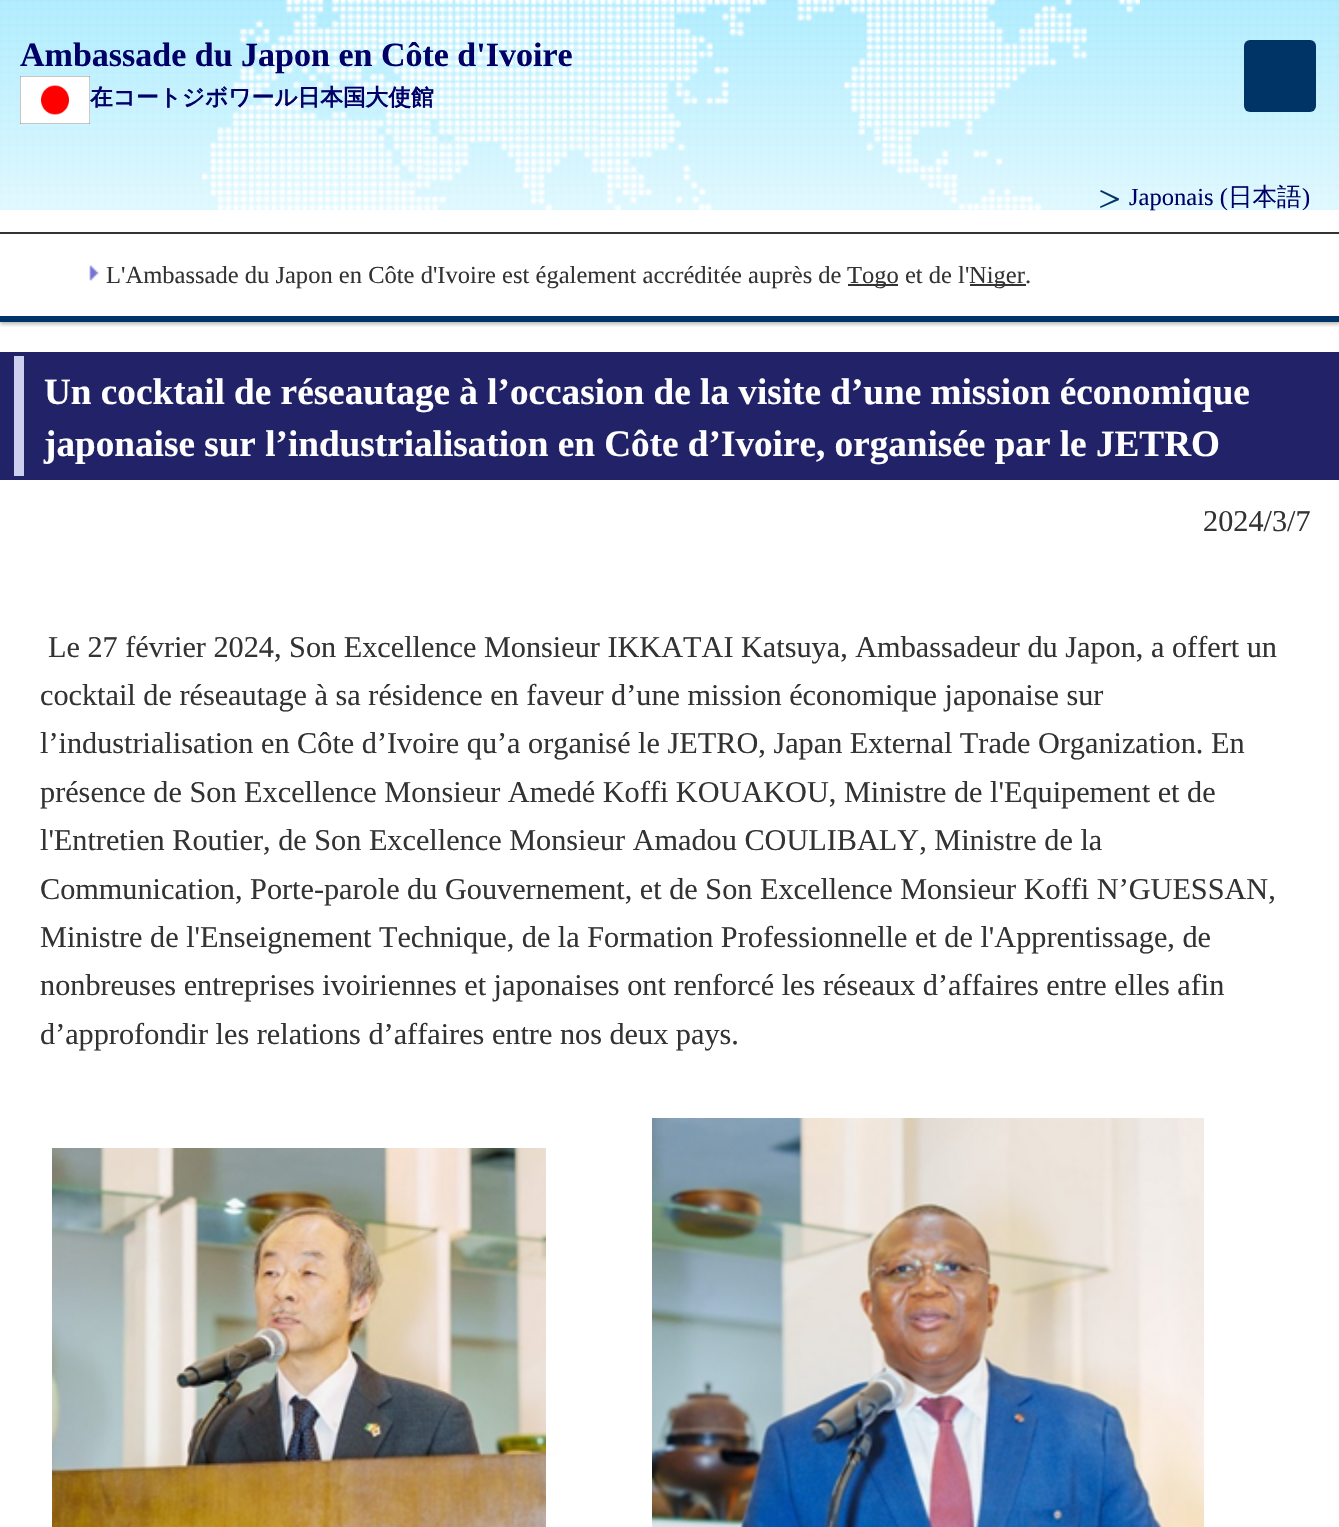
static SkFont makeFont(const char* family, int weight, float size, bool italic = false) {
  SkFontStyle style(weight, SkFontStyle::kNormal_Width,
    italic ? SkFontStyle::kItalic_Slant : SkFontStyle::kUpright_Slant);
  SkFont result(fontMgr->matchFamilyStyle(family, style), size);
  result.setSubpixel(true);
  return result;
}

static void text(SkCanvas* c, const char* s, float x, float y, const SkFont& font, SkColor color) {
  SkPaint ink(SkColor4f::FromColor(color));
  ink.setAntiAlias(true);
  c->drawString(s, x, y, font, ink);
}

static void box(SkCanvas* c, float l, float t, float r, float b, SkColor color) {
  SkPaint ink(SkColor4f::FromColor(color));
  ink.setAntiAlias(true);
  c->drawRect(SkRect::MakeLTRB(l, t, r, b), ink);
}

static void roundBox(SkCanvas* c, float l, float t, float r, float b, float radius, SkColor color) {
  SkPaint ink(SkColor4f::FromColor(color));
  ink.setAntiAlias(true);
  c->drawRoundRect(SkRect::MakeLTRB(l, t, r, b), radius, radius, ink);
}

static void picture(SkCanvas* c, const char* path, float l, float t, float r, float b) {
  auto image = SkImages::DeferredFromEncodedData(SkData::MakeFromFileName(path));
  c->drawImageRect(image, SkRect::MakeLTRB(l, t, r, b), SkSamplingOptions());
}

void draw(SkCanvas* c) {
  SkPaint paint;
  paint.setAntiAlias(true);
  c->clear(0xffffffff);
  picture(c, "img_01.png", 0, 0, 1339, 210);
  c->save();
  c->clipRect(SkRect::MakeLTRB(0, 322, 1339, 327));
  paint.setColor(0x4d000000);
  paint.setMaskFilter(SkMaskFilter::MakeBlur(kNormal_SkBlurStyle, 2));
  c->drawRect(SkRect::MakeLTRB(0, 2, 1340, 324), paint);
  paint.setMaskFilter(nullptr);
  c->restore();
  picture(c, "img_02.png", 202, 0, 1140, 210);
  SkFont face1 = makeFont("Liberation Serif", 700, 34);
  text(c, "Ambassade du Japon en Côte d'Ivoire", 20, 66, face1, 0xff000066);
  picture(c, "img_03.png", 20, 76, 90, 124);
  SkFont face2 = makeFont("WenQuanYi Zen Hei", 700, 22.7f);
  text(c, "在コートジボワール日本国大使館", 90, 105, face2, 0xff000066);
  roundBox(c, 1244, 40, 1316, 112, 6, 0xff003366);
  paint.setColor(0xff043465);
  c->drawPath(SkPathBuilder().moveTo(1118, 200.5f).lineTo(1100, 191.5f).lineTo(1101, 190).lineTo(1119, 198.5f).close().detach(), paint);
  SkFont face3 = makeFont("Liberation Serif", 400, 24.55f);
  text(c, "Japonais (", 1129, 205, face3, 0xff000066);
  SkFont face4 = makeFont("WenQuanYi Zen Hei", 500, 24.55f);
  text(c, "日本語", 1228, 205, face4, 0xff000066);
  text(c, ")", 1302, 205, face3, 0xff000066);
  c->drawPath(SkPathBuilder().moveTo(1119, 200).lineTo(1100.5f, 208).lineTo(1100, 206.5f).lineTo(1118, 198).close().detach(), paint);
  box(c, 0, 232, 1339, 234, 0xff333333);
  picture(c, "img_04.png", 89, 265, 99, 281);
  text(c, "L'Ambassade du Japon en Côte d'Ivoire est également accréditée auprès de", 106, 283, face3, 0xff333333);
  box(c, 848, 284, 898, 286, 0xff333333);
  text(c, "Togo et de l'", 847, 283, face3, 0xff333333);
  box(c, 970, 284, 1026, 286, 0xff333333);
  text(c, "Niger.", 969, 283, face3, 0xff333333);
  box(c, 0, 316, 1339, 322, 0xff003366);
  box(c, 0, 352, 1339, 480, 0xff222268);
  box(c, 14, 356, 24, 476, 0xffceceef);
  SkFont face5 = makeFont("Liberation Serif", 700, 37.2f);
  text(c, "Un cocktail de réseautage à l’occasion de la visite d’une mission économique", 44, 404, face5, 0xffffffff);
  text(c, "japonaise sur l’industrialisation en Côte d’Ivoire, organisée par le JETRO", 44, 456, face5, 0xffffffff);
  SkFont face6 = makeFont("Liberation Serif", 400, 30.25f);
  text(c, "2024/3/7", 1203, 531, face6, 0xff333333);
  text(c, "Le 27 février 2024, Son Excellence Monsieur IKKATAI Katsuya, Ambassadeur du Japon, a offert un", 48, 657, face6, 0xff333333);
  text(c, "cocktail de réseautage à sa résidence en faveur d’une mission économique japonaise sur", 40, 705, face6, 0xff333333);
  text(c, "l’industrialisation en Côte d’Ivoire qu’a organisé le JETRO, Japan External Trade Organization. En", 40, 753, face6, 0xff333333);
  text(c, "présence de Son Excellence Monsieur Amedé Koffi KOUAKOU, Ministre de l'Equipement et de", 40, 802, face6, 0xff333333);
  text(c, "l'Entretien Routier, de Son Excellence Monsieur Amadou COULIBALY, Ministre de la", 40, 850, face6, 0xff333333);
  text(c, "Communication, Porte-parole du Gouvernement, et de Son Excellence Monsieur Koffi N’GUESSAN,", 40, 899, face6, 0xff333333);
  text(c, "Ministre de l'Enseignement Technique, de la Formation Professionnelle et de l'Apprentissage, de", 40, 947, face6, 0xff333333);
  text(c, "nonbreuses entreprises ivoiriennes et japonaises ont renforcé les réseaux d’affaires entre elles afin", 40, 995, face6, 0xff333333);
  text(c, "d’approfondir les relations d’affaires entre nos deux pays.", 40, 1044, face6, 0xff333333);
  picture(c, "img_05.png", 52, 1148, 546, 1527);
  picture(c, "img_06.png", 652, 1118, 1204, 1527);
}
